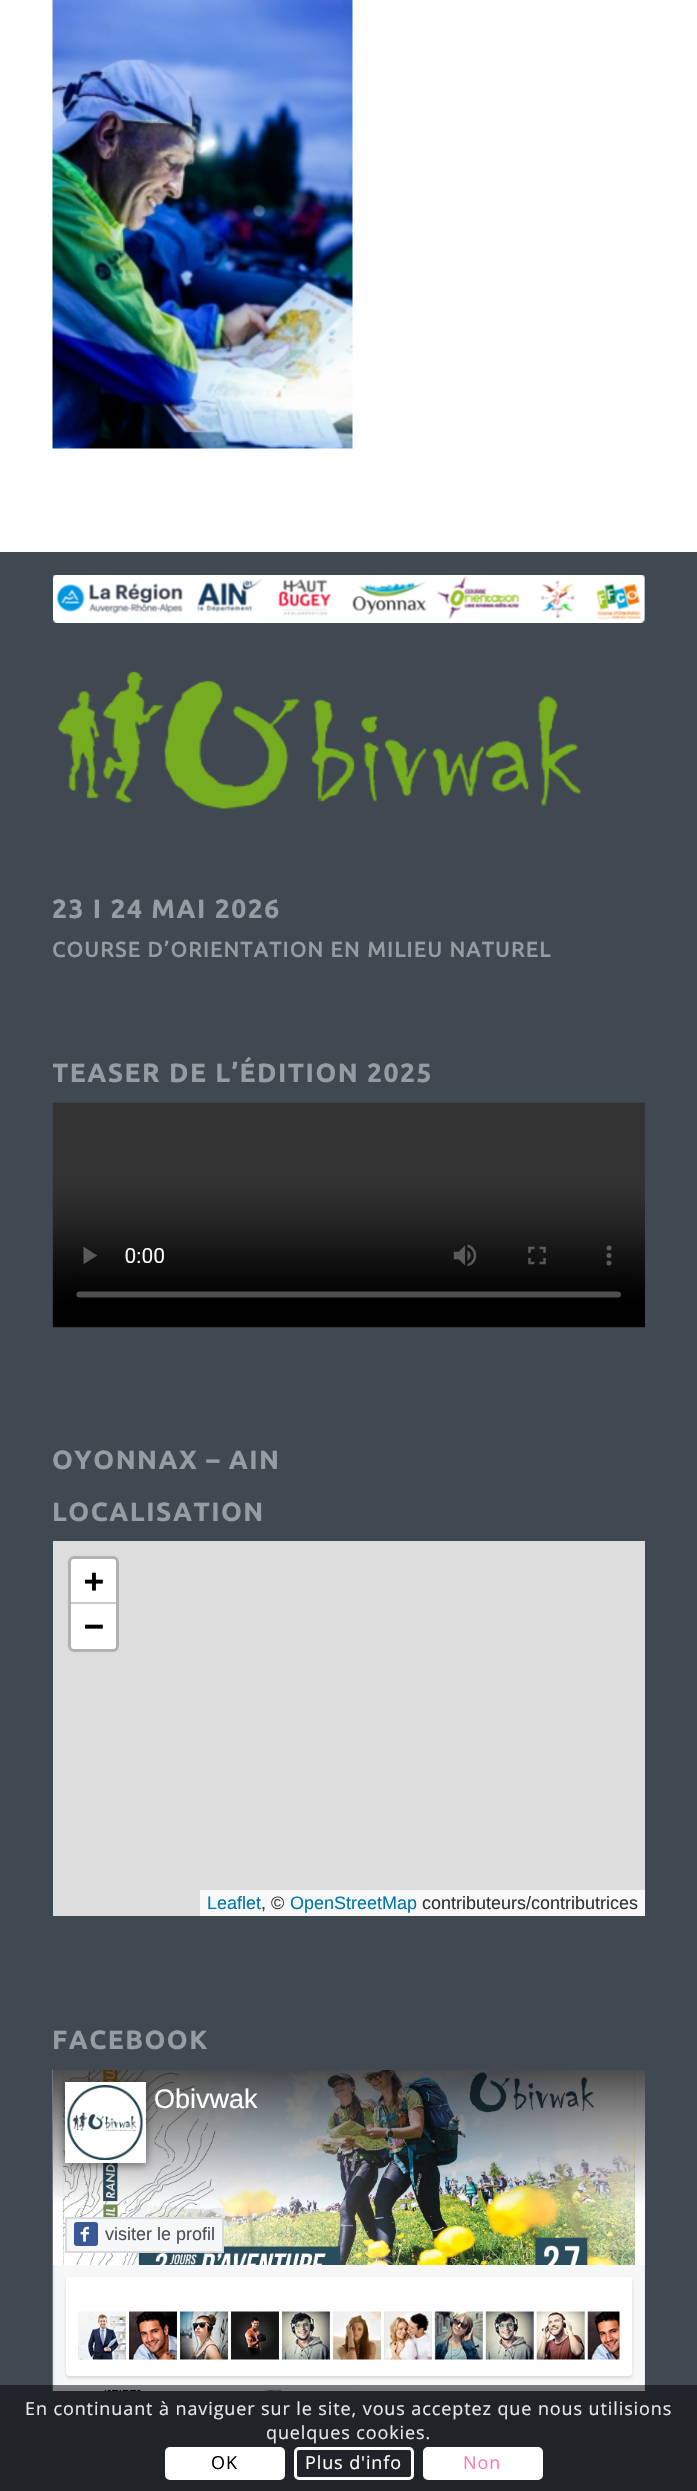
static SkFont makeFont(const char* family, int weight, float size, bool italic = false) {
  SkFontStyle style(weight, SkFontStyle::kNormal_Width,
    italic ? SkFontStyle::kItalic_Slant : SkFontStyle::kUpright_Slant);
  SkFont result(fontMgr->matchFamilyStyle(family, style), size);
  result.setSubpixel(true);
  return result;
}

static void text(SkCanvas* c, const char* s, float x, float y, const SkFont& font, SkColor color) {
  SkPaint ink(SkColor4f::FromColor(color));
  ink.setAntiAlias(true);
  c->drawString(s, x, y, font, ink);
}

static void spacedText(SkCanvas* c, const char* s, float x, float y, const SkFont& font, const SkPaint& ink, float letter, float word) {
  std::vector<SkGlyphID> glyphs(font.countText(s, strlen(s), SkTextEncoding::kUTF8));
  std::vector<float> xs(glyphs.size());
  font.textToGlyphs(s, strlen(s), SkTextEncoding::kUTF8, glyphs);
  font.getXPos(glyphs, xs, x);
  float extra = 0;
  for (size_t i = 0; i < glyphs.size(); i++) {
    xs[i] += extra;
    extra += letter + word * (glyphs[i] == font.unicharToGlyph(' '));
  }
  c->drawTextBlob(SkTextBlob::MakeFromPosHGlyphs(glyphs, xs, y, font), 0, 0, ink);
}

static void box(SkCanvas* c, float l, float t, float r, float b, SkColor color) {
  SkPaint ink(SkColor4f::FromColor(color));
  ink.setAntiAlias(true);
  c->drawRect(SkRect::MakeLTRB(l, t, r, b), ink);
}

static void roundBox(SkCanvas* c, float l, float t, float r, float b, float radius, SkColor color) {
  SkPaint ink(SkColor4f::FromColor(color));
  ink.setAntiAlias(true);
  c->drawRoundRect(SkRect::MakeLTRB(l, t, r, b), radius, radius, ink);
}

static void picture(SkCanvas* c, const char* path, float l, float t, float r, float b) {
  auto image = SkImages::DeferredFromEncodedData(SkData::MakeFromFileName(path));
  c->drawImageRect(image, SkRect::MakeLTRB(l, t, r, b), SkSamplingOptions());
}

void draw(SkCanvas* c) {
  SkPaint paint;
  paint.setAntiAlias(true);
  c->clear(0xffffffff);
  picture(c, "img_01.png", 52, 0, 353, 449);
  box(c, 0, 552, 697, 2491, 0xff404852);
  picture(c, "img_02.png", 53, 575, 645, 623);
  picture(c, "img_03.png", 58, 671, 581, 809);
  SkFont face1 = makeFont("Ubuntu", 700, 26.4f);
  paint.setColor(0xff969ca4);
  spacedText(c, "23 I 24 MAI 2026", 52, 918, face1, paint, 1.5f, 0);
  SkFont face2 = makeFont("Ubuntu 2", 700, 21);
  spacedText(c, "COURSE D’ORIENTATION EN MILIEU NATUREL", 52, 957, face2, paint, 1.5f, 0);
  c->save();
  c->clipRect(SkRect::MakeLTRB(53, 1040, 645, 1337));
  spacedText(c, "TEASER DE L’ÉDITION 2025", 52, 1082, face1, paint, 1.5f, 0);
  c->restore();
  picture(c, "img_04.png", 52, 1102, 645, 1328);
  spacedText(c, "OYONNAX – AIN", 52, 1469, face1, paint, 1.5f, 0);
  spacedText(c, "LOCALISATION", 52, 1521, face1, paint, 1.5f, 0);
  box(c, 53, 1541, 645, 1916, 0xffdddddd);
  paint.setStyle(SkPaint::kStroke_Style);
  paint.setStrokeWidth(3);
  paint.setColor(0xffb1b1b1);
  c->drawRoundRect(SkRect::MakeLTRB(69.5f, 1557.5f, 117.5f, 1650.5f), 4.5f, 4.5f, paint);
  paint.setStyle(SkPaint::kFill_Style);
  paint.setColor(0xffffffff);
  c->drawPath(SkPathBuilder().moveTo(74, 1559).lineTo(113, 1559).cubicTo(114.5f, 1559, 116, 1560.5f, 116, 1562).lineTo(116, 1604).lineTo(71, 1604).lineTo(71, 1562).cubicTo(71, 1560.5f, 72.5f, 1559, 74, 1559).close().detach(), paint);
  box(c, 71, 1602, 116, 1604, 0xffcccccc);
  SkFont face3 = makeFont("DejaVu Sans Mono", 700, 33);
  text(c, "+", 84, 1592, face3, 0xff000000);
  c->drawPath(SkPathBuilder().moveTo(71, 1604).lineTo(116, 1604).lineTo(116, 1646).cubicTo(116, 1647.5f, 114.5f, 1649, 113, 1649).lineTo(74, 1649).cubicTo(72.5f, 1649, 71, 1647.5f, 71, 1646).close().detach(), paint);
  text(c, "−", 84, 1637, face3, 0xff000000);
  box(c, 200, 1890, 645, 1916, 0xfff8f8f8);
  SkFont face4 = makeFont("Liberation Sans", 400, 18);
  text(c, "Leaflet", 207, 1909, face4, 0xff0078a8);
  text(c, ", ©", 261, 1909, face4, 0xff333333);
  text(c, "OpenStreetMap", 290, 1909, face4, 0xff0078a8);
  text(c, "contributeurs/contributrices", 422, 1909, face4, 0xff333333);
  paint.setColor(0xff969ca4);
  spacedText(c, "FACEBOOK", 52, 2049, face1, paint, 1.5f, 0);
  picture(c, "img_05.png", 52, 2070, 645, 2391);
  paint.setColor(0x80000000);
  paint.setMaskFilter(SkMaskFilter::MakeBlur(kNormal_SkBlurStyle, 4.5f));
  c->drawRect(SkRect::MakeLTRB(65, 2084, 146, 2165), paint);
  paint.setMaskFilter(nullptr);
  box(c, 65, 2082, 146, 2163, 0xffffffff);
  picture(c, "img_06.png", 67, 2085, 143, 2160);
  SkFont face5 = makeFont("Liberation Sans", 400, 27);
  text(c, "Obivwak", 154, 2108, face5, 0xffffffff);
  paint.setColor(0xfff6f7f9);
  c->drawRect(SkRect::MakeLTRB(66, 2218, 223, 2252), paint);
  paint.setStyle(SkPaint::kStroke_Style);
  paint.setStrokeWidth(2);
  paint.setColor(0xffd8d9db);
  c->drawRect(SkRect::MakeLTRB(66, 2218, 223, 2252), paint);
  roundBox(c, 74, 2222, 98, 2246, 3, 0xff3a5797);
  picture(c, "img_07.png", 80, 2226, 89, 2242);
  text(c, "visiter le profil", 105, 2240, face4, 0xff4b4f56);
  box(c, 55, 2265, 644, 2388, 0xfff6f7f9);
  box(c, 644, 2265, 645, 2390, 0xffe9ebee);
  box(c, 53, 2388, 645, 2390, 0xffe9ebee);
  box(c, 53, 2265, 55, 2390, 0xffe9ebee);
  paint.setStyle(SkPaint::kFill_Style);
  paint.setColor(0x1f000000);
  paint.setMaskFilter(SkMaskFilter::MakeBlur(kNormal_SkBlurStyle, 1.5f));
  c->drawRoundRect(SkRect::MakeLTRB(66, 2279, 632, 2378), 3, 3, paint);
  paint.setMaskFilter(nullptr);
  roundBox(c, 66, 2277, 632, 2376, 3, 0xffffffff);
  picture(c, "img_08.png", 78, 2311, 620, 2360);
  box(c, 0, 2385, 697, 2491, 0x80000000);
  SkFont face6 = makeFont("Open Sans", 400, 18);
  paint.setColor(0xffe9e9ea);
  spacedText(c, "En continuant à naviguer sur le site, vous acceptez que nous utilisions", 25, 2415, face6, paint, 0.9f, 0);
  spacedText(c, "quelques cookies.", 266, 2439, face6, paint, 0.9f, 0);
  roundBox(c, 165, 2447, 285, 2480, 5, 0xffffffff);
  paint.setColor(0xff000000);
  spacedText(c, "OK", 211, 2469, face6, paint, 0.9f, 0);
  paint.setStyle(SkPaint::kStroke_Style);
  paint.setStrokeWidth(3);
  paint.setColor(0xffffffff);
  c->drawRoundRect(SkRect::MakeLTRB(295.5f, 2448.5f, 412.5f, 2478.5f), 3.5f, 3.5f, paint);
  paint.setStyle(SkPaint::kFill_Style);
  spacedText(c, "Plus d'info", 305, 2469, face6, paint, 0.9f, 0);
  c->drawRoundRect(SkRect::MakeLTRB(424.5f, 2448.5f, 541.5f, 2478.5f), 3.5f, 3.5f, paint);
  paint.setStyle(SkPaint::kStroke_Style);
  c->drawRoundRect(SkRect::MakeLTRB(424.5f, 2448.5f, 541.5f, 2478.5f), 3.5f, 3.5f, paint);
  paint.setStyle(SkPaint::kFill_Style);
  paint.setColor(0xffff75b5);
  spacedText(c, "Non", 463, 2469, face6, paint, 0.9f, 0);
}
